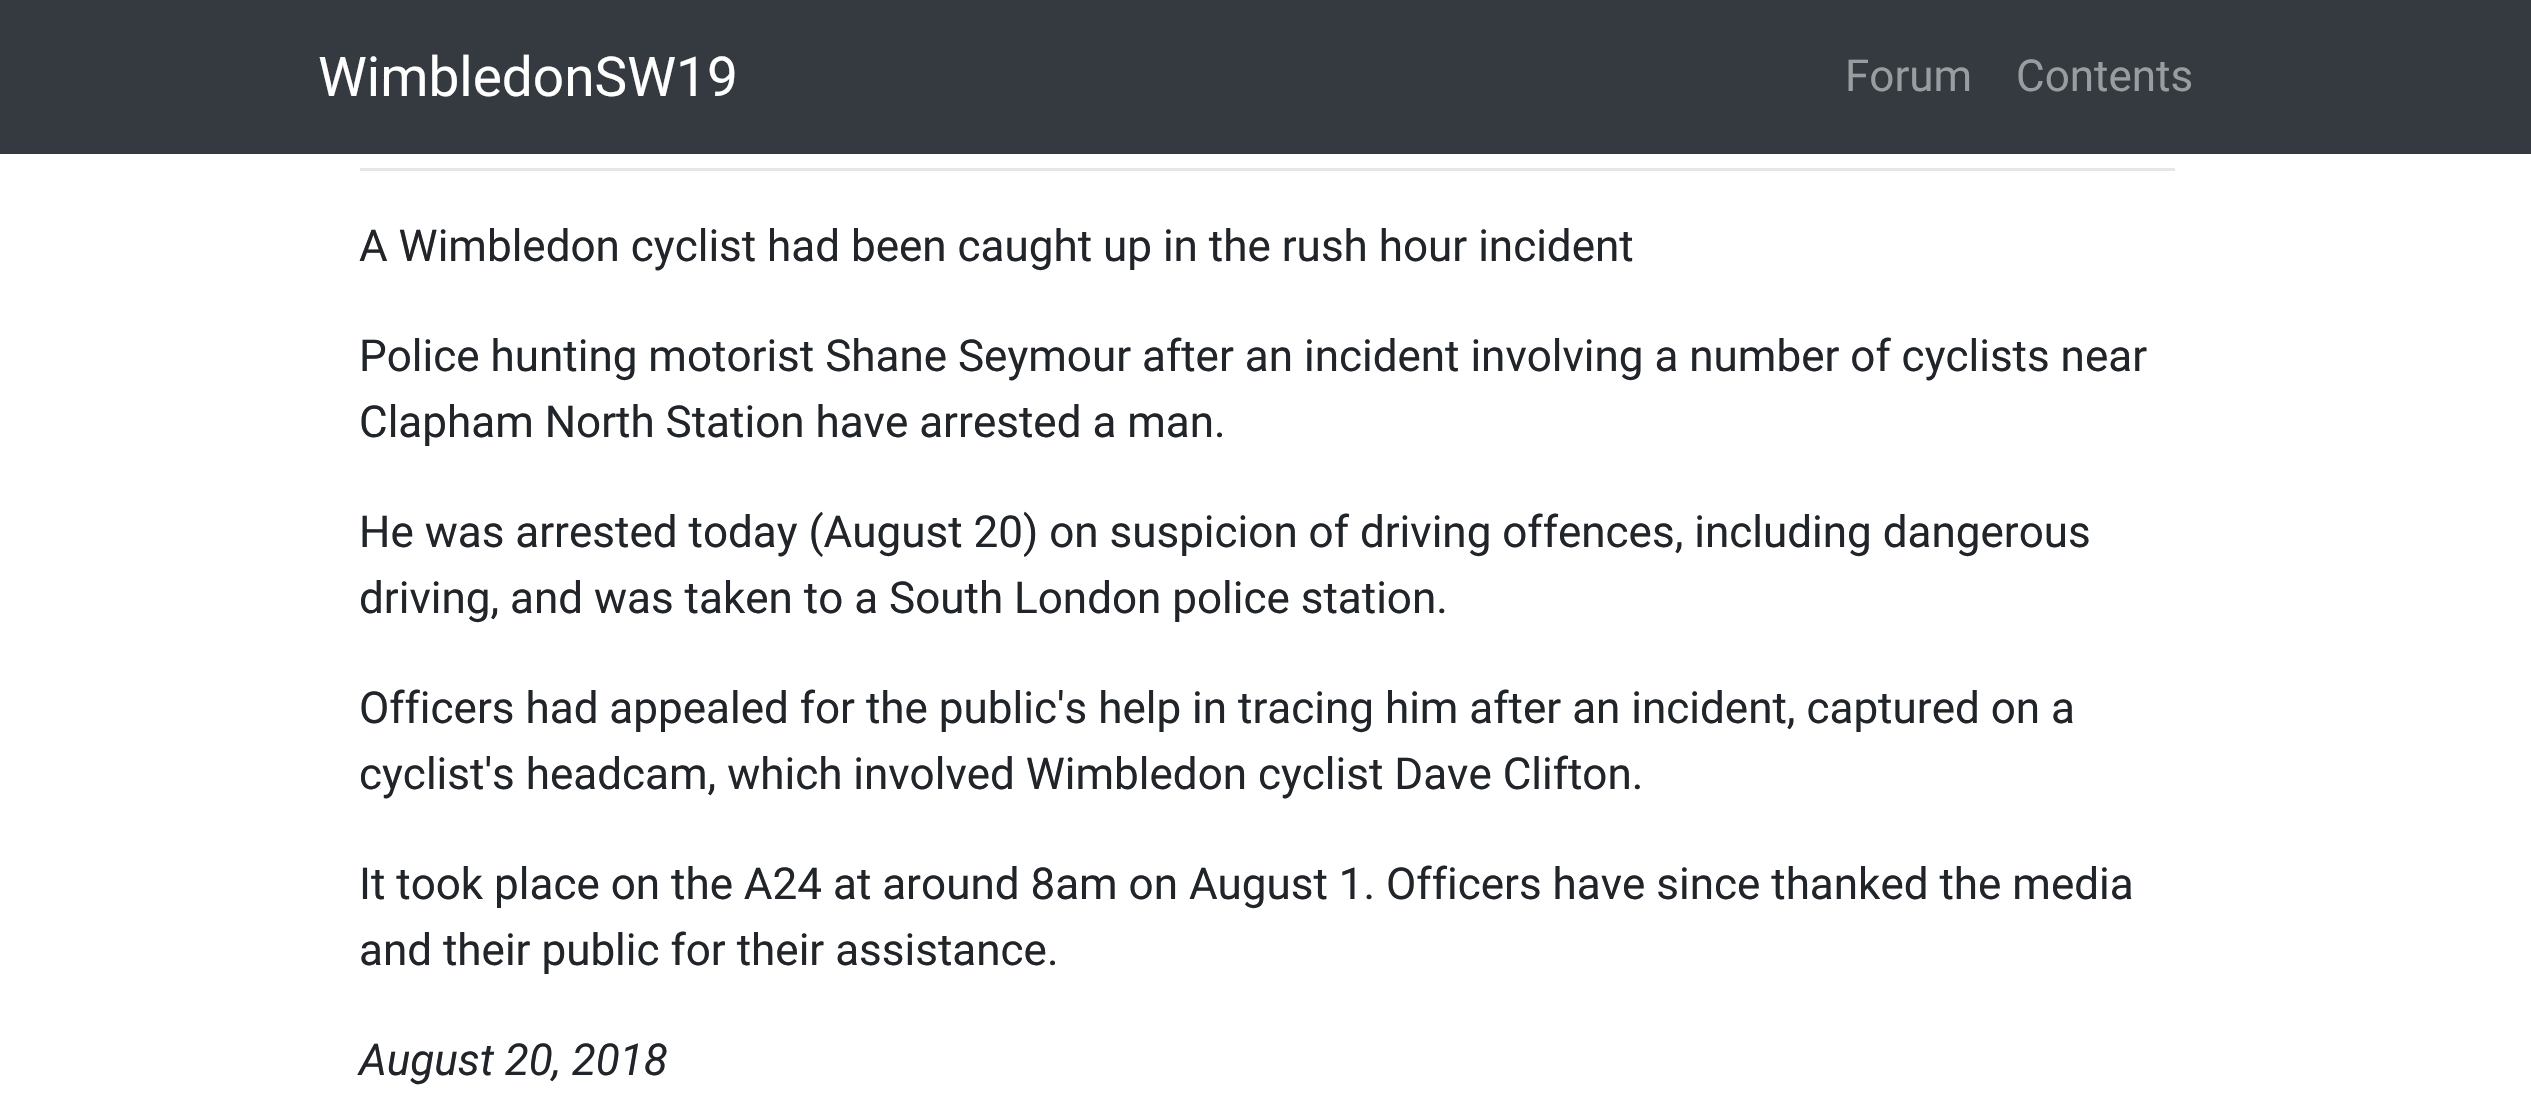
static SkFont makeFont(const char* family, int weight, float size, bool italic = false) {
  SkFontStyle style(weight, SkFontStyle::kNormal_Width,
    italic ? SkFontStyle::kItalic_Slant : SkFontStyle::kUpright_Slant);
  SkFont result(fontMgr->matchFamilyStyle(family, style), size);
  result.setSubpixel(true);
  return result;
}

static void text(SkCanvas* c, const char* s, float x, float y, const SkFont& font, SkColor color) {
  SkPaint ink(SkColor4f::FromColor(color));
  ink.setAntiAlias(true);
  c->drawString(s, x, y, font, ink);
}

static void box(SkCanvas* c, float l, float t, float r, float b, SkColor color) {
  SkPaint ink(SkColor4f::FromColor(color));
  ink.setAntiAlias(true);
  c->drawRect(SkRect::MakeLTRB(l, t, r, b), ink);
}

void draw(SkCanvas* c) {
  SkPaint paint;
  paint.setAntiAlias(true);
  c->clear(0xffffffff);
  box(c, 0, 0, 2531, 154, 0xff343a40);
  SkFont face1 = makeFont("Roboto", 400, 55);
  text(c, "WimbledonSW19", 318, 96, face1, 0xffffffff);
  SkFont face2 = makeFont("Roboto", 400, 44);
  text(c, "Forum", 1845, 91, face2, 0xff9a9da0);
  text(c, "Contents", 2016, 91, face2, 0xff9a9da0);
  box(c, 360, 168, 2175, 171, 0xffe6e6e6);
  text(c, "A Wimbledon cyclist had been caught up in the rush hour incident", 359, 261, face2, 0xff212529);
  text(c, "Police hunting motorist Shane Seymour after an incident involving a number of cyclists near", 359, 371, face2, 0xff212529);
  text(c, "Clapham North Station have arrested a man.", 359, 437, face2, 0xff212529);
  text(c, "He was arrested today (August 20) on suspicion of driving offences, including dangerous", 359, 547, face2, 0xff212529);
  text(c, "driving, and was taken to a South London police station.", 359, 613, face2, 0xff212529);
  text(c, "Officers had appealed for the public's help in tracing him after an incident, captured on a", 359, 723, face2, 0xff212529);
  text(c, "cyclist's headcam, which involved Wimbledon cyclist Dave Clifton.", 359, 789, face2, 0xff212529);
  text(c, "It took place on the A24 at around 8am on August 1. Officers have since thanked the media", 359, 899, face2, 0xff212529);
  text(c, "and their public for their assistance.", 359, 965, face2, 0xff212529);
  SkFont face3 = makeFont("Roboto", 400, 44, true);
  text(c, "August 20, 2018", 359, 1075, face3, 0xff212529);
}
